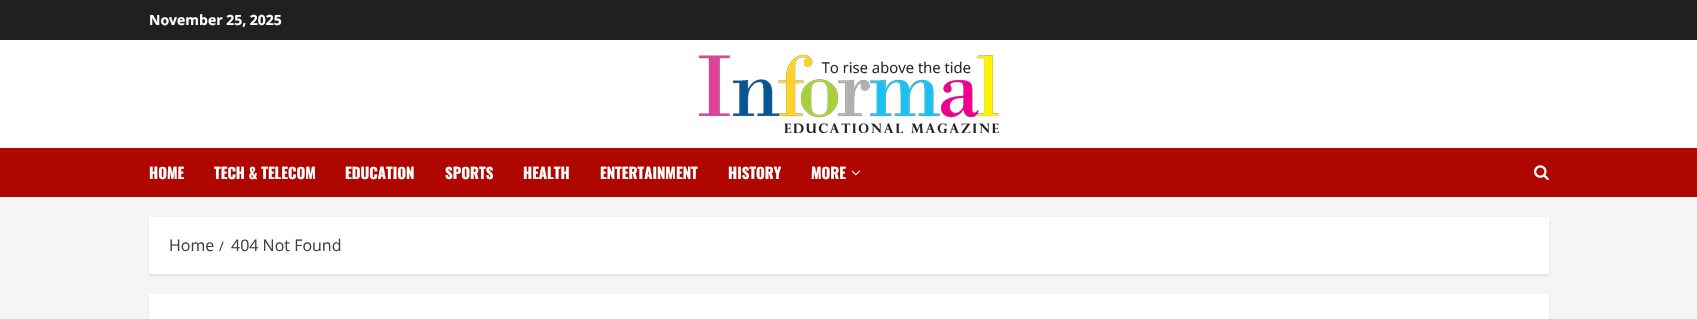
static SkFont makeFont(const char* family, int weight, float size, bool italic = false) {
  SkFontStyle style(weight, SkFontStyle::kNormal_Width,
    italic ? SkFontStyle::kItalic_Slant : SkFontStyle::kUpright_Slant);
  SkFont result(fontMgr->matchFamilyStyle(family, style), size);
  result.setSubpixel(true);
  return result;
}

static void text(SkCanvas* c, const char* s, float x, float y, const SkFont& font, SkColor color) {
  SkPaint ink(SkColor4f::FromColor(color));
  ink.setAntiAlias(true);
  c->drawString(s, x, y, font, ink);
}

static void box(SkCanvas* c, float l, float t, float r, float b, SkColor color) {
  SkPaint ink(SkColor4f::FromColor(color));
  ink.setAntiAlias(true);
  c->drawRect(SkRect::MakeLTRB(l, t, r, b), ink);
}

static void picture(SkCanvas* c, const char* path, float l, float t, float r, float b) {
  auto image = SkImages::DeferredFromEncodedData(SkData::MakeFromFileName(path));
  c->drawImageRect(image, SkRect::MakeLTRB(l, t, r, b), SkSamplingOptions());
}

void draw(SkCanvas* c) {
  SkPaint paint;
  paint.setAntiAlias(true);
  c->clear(0xfff5f5f5);
  box(c, 0, 0, 1697, 40, 0xff202020);
  SkFont face1 = makeFont("Open Sans", 700, 14);
  text(c, "November 25, 2025", 149, 25, face1, 0xffffffff);
  box(c, 0, 40, 1697, 148, 0xffffffff);
  picture(c, "img_01.png", 699, 55, 999, 133);
  box(c, 0, 148, 1697, 197, 0xffaf0700);
  SkFont face2 = makeFont("Oswald", 700, 15);
  text(c, "HOME", 149, 179, face2, 0xffffffff);
  text(c, "TECH & TELECOM", 214, 179, face2, 0xffffffff);
  text(c, "EDUCATION", 345, 179, face2, 0xffffffff);
  text(c, "SPORTS", 445, 179, face2, 0xffffffff);
  text(c, "HEALTH", 523, 179, face2, 0xffffffff);
  text(c, "ENTERTAINMENT", 600, 179, face2, 0xffffffff);
  text(c, "HISTORY", 728, 179, face2, 0xffffffff);
  text(c, "MORE", 811, 179, face2, 0xffffffff);
  picture(c, "img_02.png", 851, 170, 860, 176);
  picture(c, "img_03.png", 1534, 165, 1549, 181);
  paint.setColor(0x14000000);
  paint.setMaskFilter(SkMaskFilter::MakeBlur(kNormal_SkBlurStyle, 1));
  c->drawRect(SkRect::MakeLTRB(149, 219, 1549, 276), paint);
  paint.setMaskFilter(nullptr);
  box(c, 149, 217, 1549, 274, 0xffffffff);
  SkFont face3 = makeFont("Open Sans", 400, 16);
  text(c, "Home", 169, 251, face3, 0xff404040);
  SkFont face4 = makeFont("Open Sans", 400, 13);
  text(c, "/", 219, 251, face4, 0xff404040);
  text(c, "404 Not Found", 231, 251, face3, 0xff404040);
  paint.setMaskFilter(SkMaskFilter::MakeBlur(kNormal_SkBlurStyle, 1));
  c->drawRect(SkRect::MakeLTRB(149, 296, 1549, 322), paint);
  paint.setMaskFilter(nullptr);
  box(c, 149, 294, 1549, 319, 0xffffffff);
}
